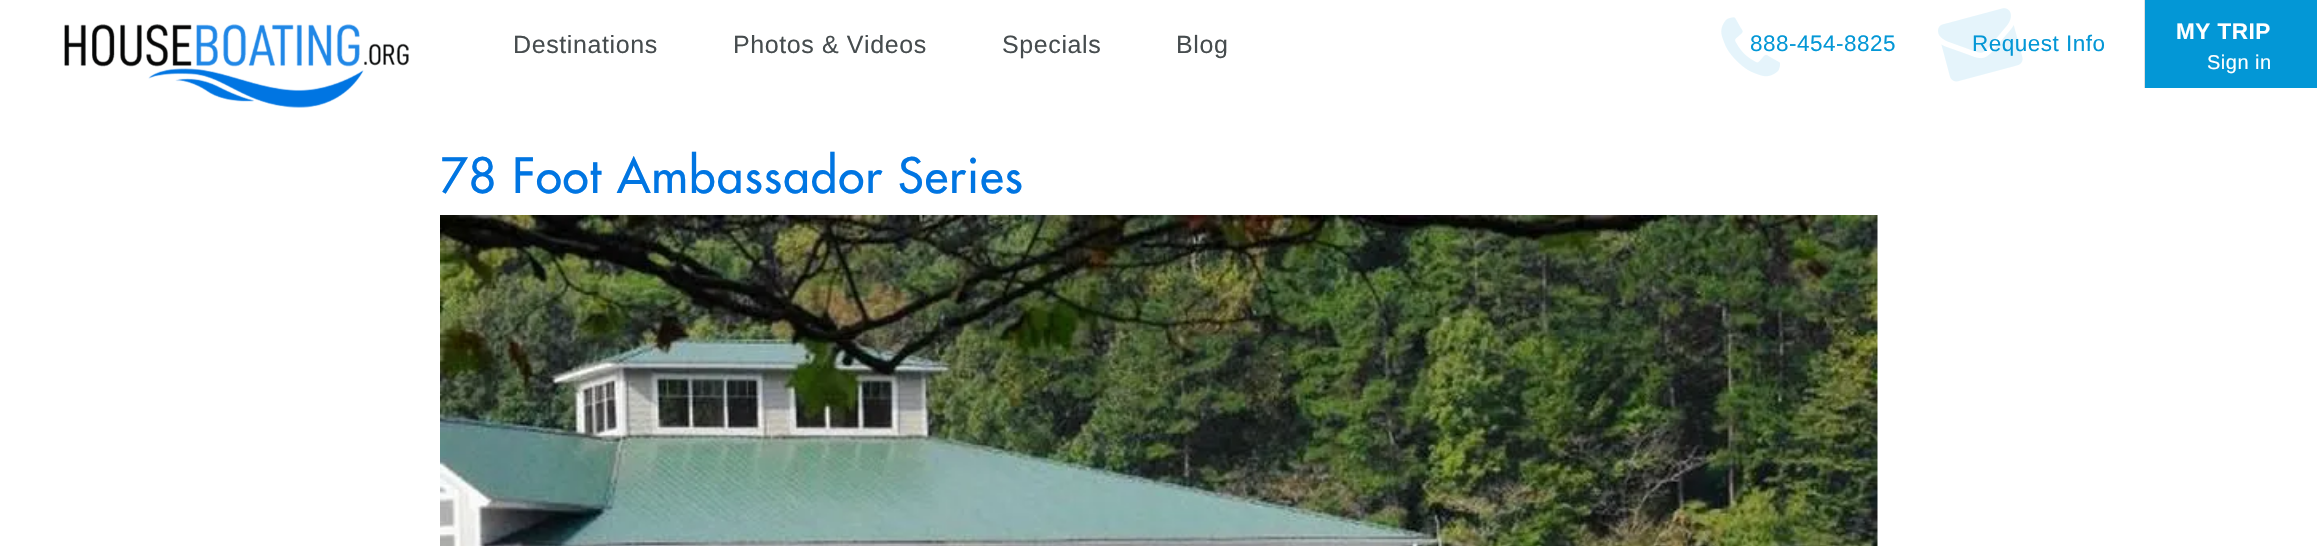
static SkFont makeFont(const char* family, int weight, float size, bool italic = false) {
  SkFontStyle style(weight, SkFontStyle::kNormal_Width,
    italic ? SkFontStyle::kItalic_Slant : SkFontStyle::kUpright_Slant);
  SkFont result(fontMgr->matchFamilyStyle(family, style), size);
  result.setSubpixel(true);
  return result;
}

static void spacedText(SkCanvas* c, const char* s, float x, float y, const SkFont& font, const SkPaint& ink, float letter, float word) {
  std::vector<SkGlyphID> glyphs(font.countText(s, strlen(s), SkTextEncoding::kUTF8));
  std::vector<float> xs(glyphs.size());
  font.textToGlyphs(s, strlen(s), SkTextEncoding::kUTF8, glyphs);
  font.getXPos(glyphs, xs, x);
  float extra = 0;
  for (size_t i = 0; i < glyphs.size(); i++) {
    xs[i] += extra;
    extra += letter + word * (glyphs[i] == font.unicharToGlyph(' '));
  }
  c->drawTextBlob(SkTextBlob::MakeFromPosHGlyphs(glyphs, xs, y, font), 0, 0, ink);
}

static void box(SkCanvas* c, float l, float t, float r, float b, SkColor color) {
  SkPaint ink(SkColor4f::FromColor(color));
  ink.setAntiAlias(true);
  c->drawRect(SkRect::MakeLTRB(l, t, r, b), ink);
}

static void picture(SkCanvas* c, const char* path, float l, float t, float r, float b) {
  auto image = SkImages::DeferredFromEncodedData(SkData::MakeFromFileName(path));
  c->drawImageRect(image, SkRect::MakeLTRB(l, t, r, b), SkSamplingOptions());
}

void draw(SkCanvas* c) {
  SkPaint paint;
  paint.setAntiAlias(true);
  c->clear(0xffffffff);
  picture(c, "img_01.png", 64, 24, 409, 108);
  SkFont face1 = makeFont("Liberation Sans", 400, 25);
  paint.setColor(0xff464c4e);
  spacedText(c, "Destinations", 513, 53, face1, paint, 0.6f, 0);
  spacedText(c, "Photos & Videos", 733, 53, face1, paint, 0.6f, 0);
  spacedText(c, "Specials", 1002, 53, face1, paint, 0.6f, 0);
  spacedText(c, "Blog", 1176, 53, face1, paint, 0.6f, 0);
  SkFont face2 = makeFont("Liberation Sans", 400, 22.5f);
  paint.setColor(0xff0397d6);
  spacedText(c, "888-454-8825", 1750, 51, face2, paint, 0.5f, 0);
  picture(c, "img_02.png", 1721, 17, 1780, 77);
  spacedText(c, "Request Info", 1972, 51, face2, paint, 0.5f, 0);
  picture(c, "img_03.png", 1938, 8, 2023, 82);
  box(c, 2144, 0, 2145, 88, 0xffdfdfdf);
  box(c, 2145, 0, 2317, 88, 0xff0397d6);
  SkFont face3 = makeFont("Liberation Sans", 700, 22.5f);
  paint.setColor(0xffffffff);
  spacedText(c, "MY TRIP", 2176, 39, face3, paint, 0.5f, 0);
  SkFont face4 = makeFont("Liberation Sans", 400, 20);
  spacedText(c, "Sign in", 2207, 69, face4, paint, 0.5f, 0);
  SkFont face5 = makeFont("Futura", 400, 47.5f);
  paint.setColor(0xff0075e2);
  spacedText(c, "78 Foot Ambassador Series", 440, 193, face5, paint, 1.2f, 0);
  picture(c, "img_04.png", 440, 215, 1878, 546);
}
